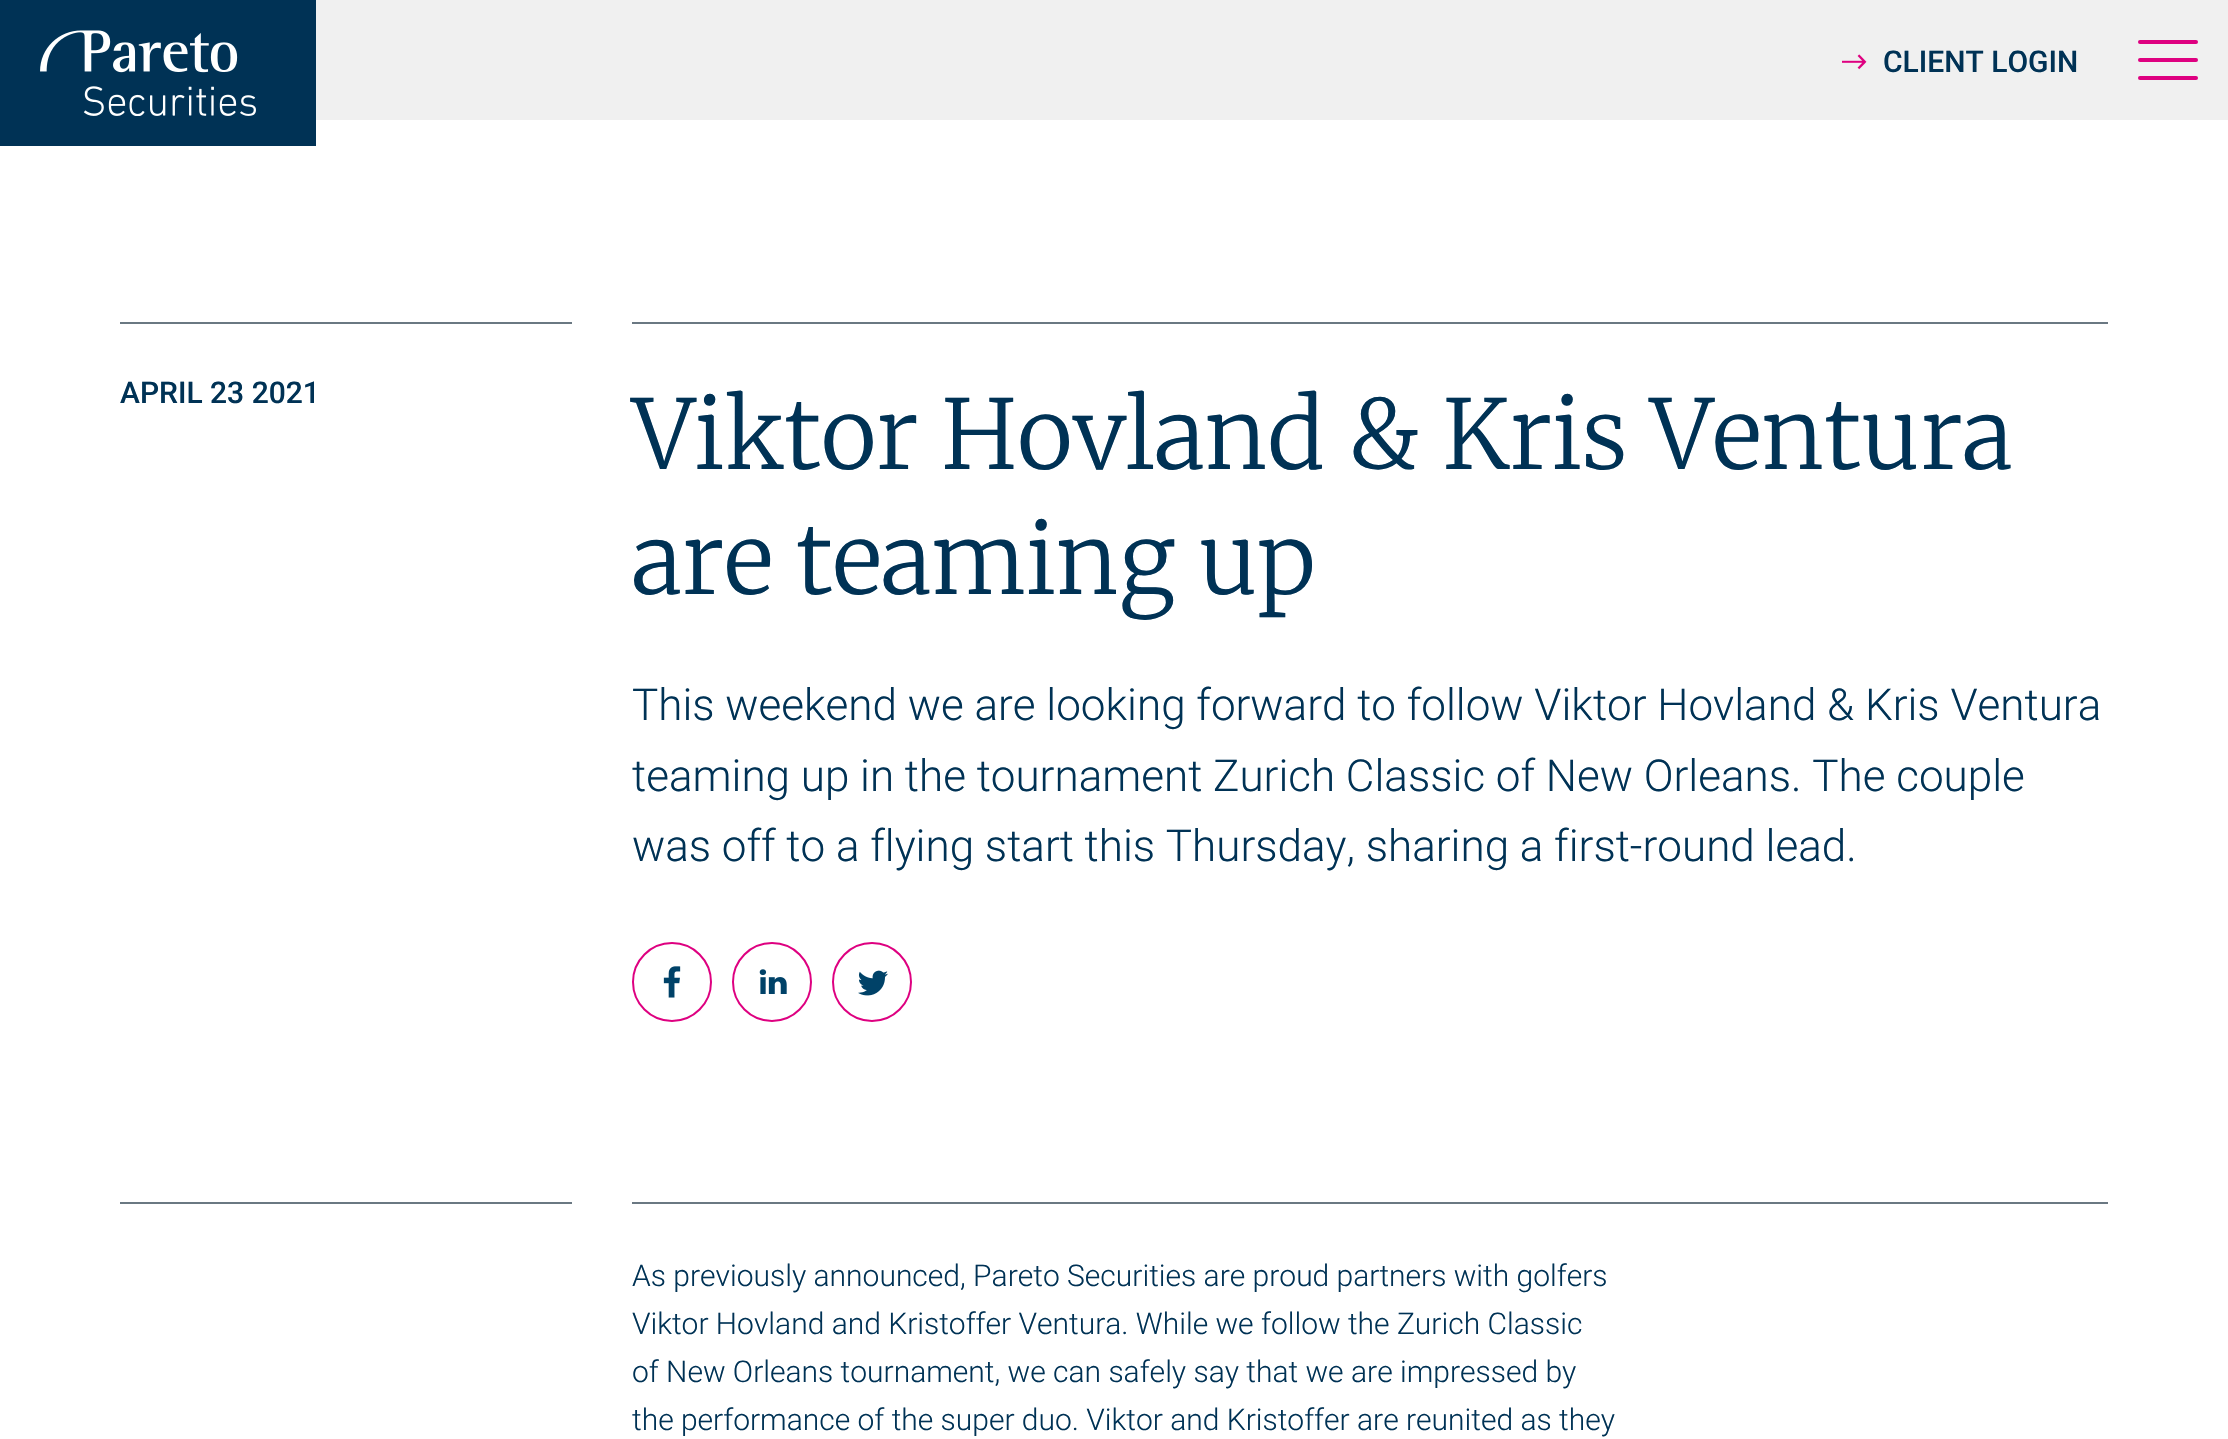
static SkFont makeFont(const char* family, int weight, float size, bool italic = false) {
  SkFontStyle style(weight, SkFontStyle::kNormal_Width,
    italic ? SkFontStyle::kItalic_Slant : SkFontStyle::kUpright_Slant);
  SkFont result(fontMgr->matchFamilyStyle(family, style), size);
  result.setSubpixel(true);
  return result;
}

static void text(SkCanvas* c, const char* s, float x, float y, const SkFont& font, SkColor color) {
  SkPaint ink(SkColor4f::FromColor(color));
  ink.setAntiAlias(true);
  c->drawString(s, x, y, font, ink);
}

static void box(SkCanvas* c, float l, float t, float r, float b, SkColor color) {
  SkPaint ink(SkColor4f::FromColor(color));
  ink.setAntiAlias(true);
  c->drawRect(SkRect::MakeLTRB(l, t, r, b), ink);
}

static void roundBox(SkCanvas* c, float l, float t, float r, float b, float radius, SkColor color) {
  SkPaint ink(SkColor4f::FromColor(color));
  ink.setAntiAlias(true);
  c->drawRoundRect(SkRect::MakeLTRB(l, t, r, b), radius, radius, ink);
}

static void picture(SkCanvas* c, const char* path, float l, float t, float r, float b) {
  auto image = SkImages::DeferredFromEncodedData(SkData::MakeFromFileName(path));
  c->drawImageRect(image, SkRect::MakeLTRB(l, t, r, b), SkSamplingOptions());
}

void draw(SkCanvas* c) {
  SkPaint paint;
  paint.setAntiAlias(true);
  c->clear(0xffffffff);
  box(c, 316, 0, 2228, 120, 0xfff0f0f0);
  box(c, 0, 0, 316, 146, 0xff003255);
  picture(c, "img_01.png", 40, 30, 256, 116);
  picture(c, "img_02.png", 1842, 54, 1867, 70);
  SkFont face1 = makeFont("Roboto", 500, 30);
  text(c, "CLIENT LOGIN", 1883, 72, face1, 0xff003255);
  roundBox(c, 2138, 40, 2198, 44, 2, 0xffde0080);
  roundBox(c, 2138, 58, 2198, 62, 2, 0xffde0080);
  roundBox(c, 2138, 76, 2198, 80, 2, 0xffde0080);
  box(c, 120, 322, 572, 324, 0xff6a7882);
  text(c, "APRIL 23 2021", 120, 403, face1, 0xff003255);
  box(c, 632, 322, 2108, 324, 0xff6a7882);
  SkFont face2 = makeFont("Merriweather", 300, 96);
  text(c, "Viktor Hovland & Kris Ventura", 632, 469, face2, 0xff003255);
  text(c, "are teaming up", 632, 594, face2, 0xff003255);
  SkFont face3 = makeFont("Roboto", 300, 44);
  text(c, "This weekend we are looking forward to follow Viktor Hovland & Kris Ventura", 632, 720, face3, 0xff003255);
  text(c, "teaming up in the tournament Zurich Classic of New Orleans. The couple", 632, 791, face3, 0xff003255);
  text(c, "was off to a flying start this Thursday, sharing a first-round lead.", 632, 861, face3, 0xff003255);
  paint.setStyle(SkPaint::kStroke_Style);
  paint.setStrokeWidth(2);
  paint.setColor(0xffde0080);
  c->drawCircle(672, 982, 39, paint);
  picture(c, "img_03.png", 663, 966, 681, 998);
  c->drawCircle(772, 982, 39, paint);
  picture(c, "img_04.png", 759, 969, 787, 994);
  c->drawCircle(872, 982, 39, paint);
  picture(c, "img_05.png", 858, 970, 888, 996);
  box(c, 120, 1202, 572, 1204, 0xff6a7882);
  box(c, 632, 1202, 2108, 1204, 0xff6a7882);
  SkFont face4 = makeFont("Roboto", 300, 30);
  text(c, "As previously announced, Pareto Securities are proud partners with golfers", 632, 1286, face4, 0xff003255);
  text(c, "Viktor Hovland and Kristoffer Ventura. While we follow the Zurich Classic", 632, 1334, face4, 0xff003255);
  text(c, "of New Orleans tournament, we can safely say that we are impressed by", 632, 1382, face4, 0xff003255);
  text(c, "the performance of the super duo. Viktor and Kristoffer are reunited as they", 632, 1430, face4, 0xff003255);
}
